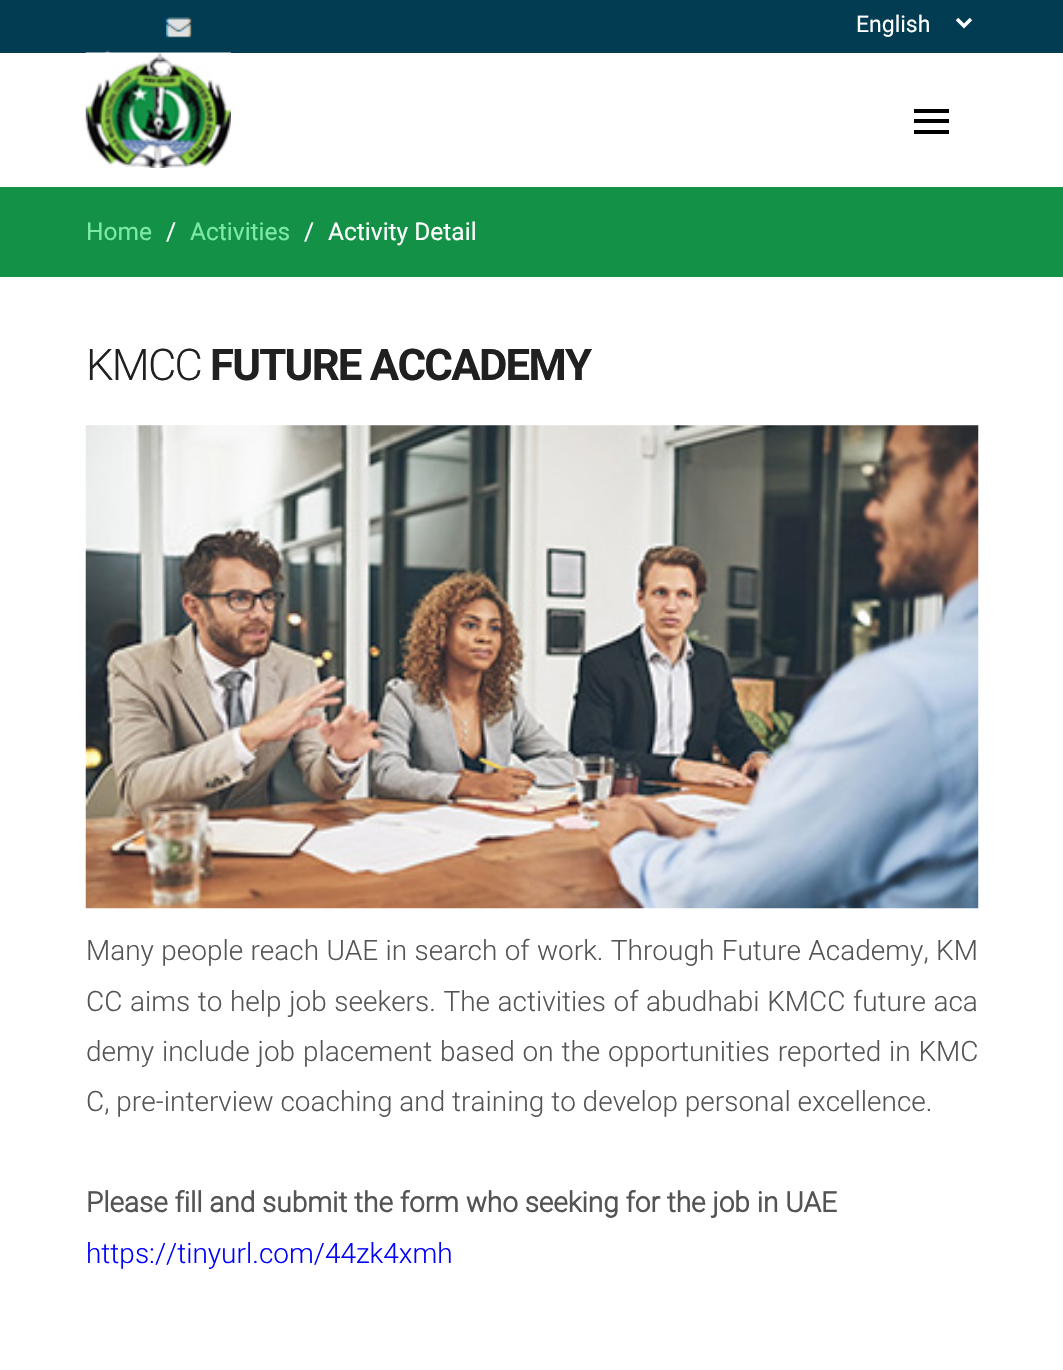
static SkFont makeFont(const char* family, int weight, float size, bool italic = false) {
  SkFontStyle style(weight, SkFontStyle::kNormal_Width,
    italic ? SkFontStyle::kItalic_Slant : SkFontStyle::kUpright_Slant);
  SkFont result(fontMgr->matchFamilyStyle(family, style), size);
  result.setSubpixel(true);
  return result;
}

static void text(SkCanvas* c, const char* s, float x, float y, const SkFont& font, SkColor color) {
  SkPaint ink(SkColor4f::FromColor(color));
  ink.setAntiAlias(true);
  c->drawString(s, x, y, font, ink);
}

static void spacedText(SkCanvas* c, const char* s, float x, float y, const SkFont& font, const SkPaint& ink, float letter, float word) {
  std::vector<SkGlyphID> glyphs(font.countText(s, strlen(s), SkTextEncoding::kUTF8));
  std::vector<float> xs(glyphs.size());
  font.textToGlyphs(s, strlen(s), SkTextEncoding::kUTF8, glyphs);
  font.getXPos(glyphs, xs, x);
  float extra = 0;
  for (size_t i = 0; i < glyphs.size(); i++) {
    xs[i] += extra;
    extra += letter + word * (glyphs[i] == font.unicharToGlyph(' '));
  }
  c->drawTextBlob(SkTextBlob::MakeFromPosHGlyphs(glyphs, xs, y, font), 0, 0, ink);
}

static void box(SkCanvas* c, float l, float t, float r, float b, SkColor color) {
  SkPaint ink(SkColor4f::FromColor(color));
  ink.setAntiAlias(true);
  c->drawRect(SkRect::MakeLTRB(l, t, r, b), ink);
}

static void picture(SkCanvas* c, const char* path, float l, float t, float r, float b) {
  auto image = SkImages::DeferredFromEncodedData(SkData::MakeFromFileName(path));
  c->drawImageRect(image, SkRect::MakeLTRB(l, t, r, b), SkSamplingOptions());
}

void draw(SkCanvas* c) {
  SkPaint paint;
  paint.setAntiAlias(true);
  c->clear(0xffffffff);
  box(c, 0, 0, 1063, 53, 0xff023c52);
  picture(c, "img_01.png", 166, 17, 192, 38);
  picture(c, "img_02.png", 102, 50, 125, 53);
  paint.setStyle(SkPaint::kStroke_Style);
  paint.setStrokeWidth(3.5f);
  paint.setColor(0xffffffff);
  c->drawPath(SkPathBuilder().moveTo(957, 19).lineTo(964, 26).lineTo(971, 19).detach(), paint);
  SkFont face1 = makeFont("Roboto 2", 400, 23);
  text(c, "English", 856, 32, face1, 0xffffffff);
  picture(c, "img_03.png", 85, 52, 231, 168);
  box(c, 914, 109, 949, 113, 0xff000000);
  box(c, 914, 119, 949, 123, 0xff000000);
  box(c, 914, 130, 949, 134, 0xff000000);
  box(c, 0, 187, 1063, 277, 0xff139147);
  SkFont face2 = makeFont("Roboto", 400, 24.5f);
  text(c, "Home", 86, 240, face2, 0xff7ce9a8);
  text(c, "/", 166, 240, face2, 0xffffffff);
  text(c, "Activities", 190, 240, face2, 0xff7ce9a8);
  text(c, "/", 304, 240, face2, 0xffffffff);
  text(c, "Activity Detail", 328, 240, face2, 0xffffffff);
  SkFont face3 = makeFont("Roboto", 300, 43.75f);
  paint.setStyle(SkPaint::kFill_Style);
  paint.setColor(0xff202020);
  spacedText(c, "KMCC", 86, 380, face3, paint, -1.75f, 0);
  SkFont face4 = makeFont("Roboto", 700, 43.75f);
  spacedText(c, "FUTURE ACCADEMY", 210, 380, face4, paint, -1.75f, 0);
  picture(c, "img_04.png", 85, 425, 979, 909);
  SkFont face5 = makeFont("Roboto", 300, 28);
  paint.setColor(0xff545454);
  spacedText(c, "Many people reach UAE in search of work. Through Future Academy, KM", 86, 960, face5, paint, 0, 0.5f);
  spacedText(c, "CC aims to help job seekers. The activities of abudhabi KMCC future aca", 86, 1011, face5, paint, 0, 0.75f);
  spacedText(c, "demy include job placement based on the opportunities reported in KMC", 86, 1061, face5, paint, 0, 1);
  text(c, "C, pre-interview coaching and training to develop personal excellence.", 86, 1111, face5, 0xff545454);
  SkFont face6 = makeFont("Roboto 2", 700, 28);
  text(c, "Please fill and submit the form who seeking for the job in UAE", 86, 1212, face6, 0xff545454);
  text(c, "https://tinyurl.com/44zk4xmh", 86, 1263, face5, 0xff0000ff);
}
